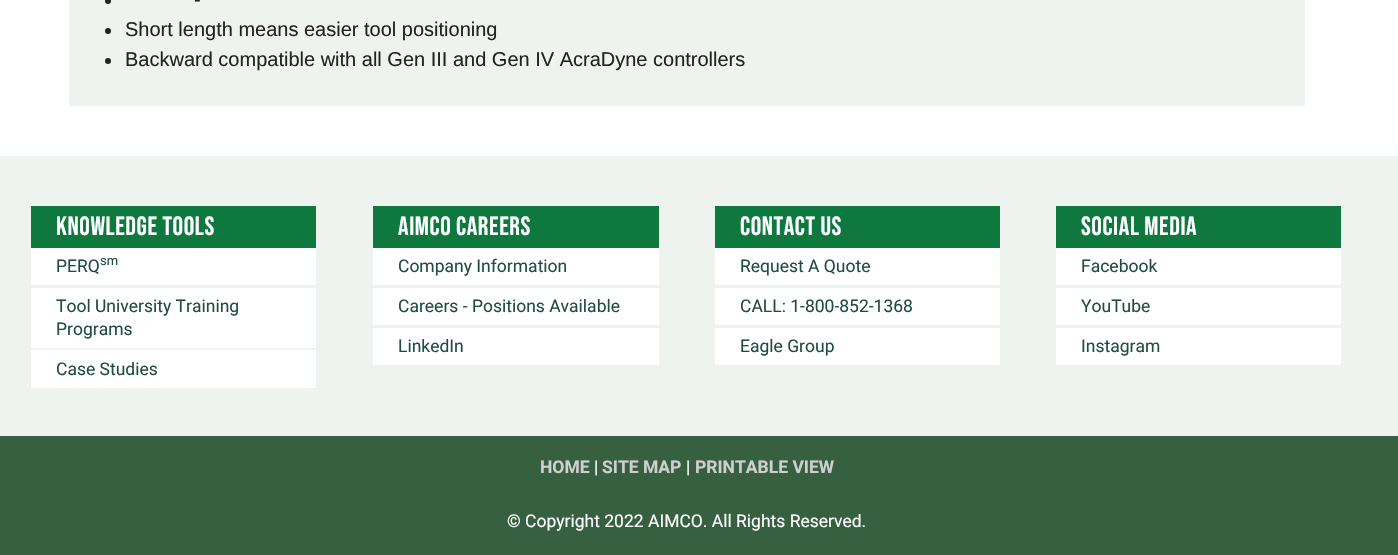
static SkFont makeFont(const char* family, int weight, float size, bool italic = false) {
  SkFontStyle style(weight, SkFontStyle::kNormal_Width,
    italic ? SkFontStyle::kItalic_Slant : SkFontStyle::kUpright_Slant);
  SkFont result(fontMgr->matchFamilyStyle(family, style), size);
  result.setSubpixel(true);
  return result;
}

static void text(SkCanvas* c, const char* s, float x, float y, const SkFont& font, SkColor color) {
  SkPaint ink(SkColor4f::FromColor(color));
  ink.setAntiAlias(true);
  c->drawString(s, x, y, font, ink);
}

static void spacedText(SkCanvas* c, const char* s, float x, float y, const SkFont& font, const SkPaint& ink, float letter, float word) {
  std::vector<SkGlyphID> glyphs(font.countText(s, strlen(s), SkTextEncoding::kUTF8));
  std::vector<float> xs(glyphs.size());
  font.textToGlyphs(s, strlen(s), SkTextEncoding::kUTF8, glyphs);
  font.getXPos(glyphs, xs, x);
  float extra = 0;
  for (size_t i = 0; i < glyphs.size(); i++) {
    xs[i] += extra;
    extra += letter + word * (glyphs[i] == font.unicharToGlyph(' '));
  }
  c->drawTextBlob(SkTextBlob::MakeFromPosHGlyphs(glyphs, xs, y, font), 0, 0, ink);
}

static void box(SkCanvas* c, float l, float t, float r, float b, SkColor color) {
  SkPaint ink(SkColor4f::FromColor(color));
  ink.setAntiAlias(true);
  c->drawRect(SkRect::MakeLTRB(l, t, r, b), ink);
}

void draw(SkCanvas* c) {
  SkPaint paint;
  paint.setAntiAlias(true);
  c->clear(0xffffffff);
  box(c, 69, 0, 1305, 106, 0xffeff3ef);
  paint.setColor(0xff222222);
  c->drawCircle(108, 1, 3, paint);
  SkFont face1 = makeFont("Liberation Sans", 400, 20);
  text(c, "-", 194, 6, face1, 0xff222222);
  c->drawCircle(108, 31, 3, paint);
  text(c, "Short length means easier tool positioning", 125, 36, face1, 0xff222222);
  c->drawCircle(108, 61, 3, paint);
  text(c, "Backward compatible with all Gen III and Gen IV AcraDyne controllers", 125, 66, face1, 0xff222222);
  box(c, 0, 156, 1398, 436, 0xffeff3ef);
  box(c, 31, 206, 316, 248, 0xff0f783f);
  SkFont face2 = makeFont("Bebas Neue", 400, 26.25f);
  paint.setColor(0xffffffff);
  spacedText(c, "Knowledge Tools", 56, 235, face2, paint, 0.6f, 0);
  box(c, 31, 248, 316, 285, 0xffffffff);
  SkFont face3 = makeFont("Roboto", 400, 17.5f);
  text(c, "PERQ", 56, 272, face3, 0xff204c42);
  SkFont face4 = makeFont("Roboto", 400, 13);
  text(c, "sm", 100, 265, face4, 0xff204c42);
  box(c, 31, 288, 316, 348, 0xffffffff);
  text(c, "Tool University Training", 56, 312, face3, 0xff204c42);
  text(c, "Programs", 56, 335, face3, 0xff204c42);
  box(c, 31, 350, 316, 388, 0xffffffff);
  text(c, "Case Studies", 56, 375, face3, 0xff204c42);
  box(c, 373, 206, 659, 248, 0xff0f783f);
  spacedText(c, "AIMCO Careers", 398, 235, face2, paint, 0.6f, 0);
  box(c, 373, 248, 659, 285, 0xffffffff);
  text(c, "Company Information", 398, 272, face3, 0xff204c42);
  box(c, 373, 288, 659, 325, 0xffffffff);
  text(c, "Careers - Positions Available", 398, 312, face3, 0xff204c42);
  box(c, 373, 328, 659, 365, 0xffffffff);
  text(c, "LinkedIn", 398, 352, face3, 0xff204c42);
  box(c, 715, 206, 1000, 248, 0xff0f783f);
  spacedText(c, "CONTACT US", 740, 235, face2, paint, 0.6f, 0);
  box(c, 715, 248, 1000, 285, 0xffffffff);
  text(c, "Request A Quote", 740, 272, face3, 0xff204c42);
  box(c, 715, 288, 1000, 325, 0xffffffff);
  text(c, "CALL: 1-800-852-1368", 740, 312, face3, 0xff204c42);
  box(c, 715, 328, 1000, 365, 0xffffffff);
  text(c, "Eagle Group", 740, 352, face3, 0xff204c42);
  box(c, 1056, 206, 1341, 248, 0xff0f783f);
  spacedText(c, "Social Media", 1081, 235, face2, paint, 0.6f, 0);
  box(c, 1056, 248, 1341, 285, 0xffffffff);
  text(c, "Facebook", 1081, 272, face3, 0xff204c42);
  box(c, 1056, 288, 1341, 325, 0xffffffff);
  text(c, "YouTube", 1081, 312, face3, 0xff204c42);
  box(c, 1056, 328, 1341, 365, 0xffffffff);
  text(c, "Instagram", 1081, 352, face3, 0xff204c42);
  box(c, 0, 436, 1398, 555, 0xff376040);
  SkFont face5 = makeFont("Roboto", 700, 17.5f);
  text(c, "HOME", 540, 473, face5, 0xffcfcfcf);
  text(c, "|", 594, 473, face3, 0xffffffff);
  text(c, "SITE MAP", 602, 473, face5, 0xffcfcfcf);
  text(c, "|", 686, 473, face3, 0xffffffff);
  text(c, "PRINTABLE VIEW", 695, 473, face5, 0xffcfcfcf);
  text(c, "© Copyright 2022 AIMCO. All Rights Reserved.", 507, 527, face3, 0xffffffff);
}
